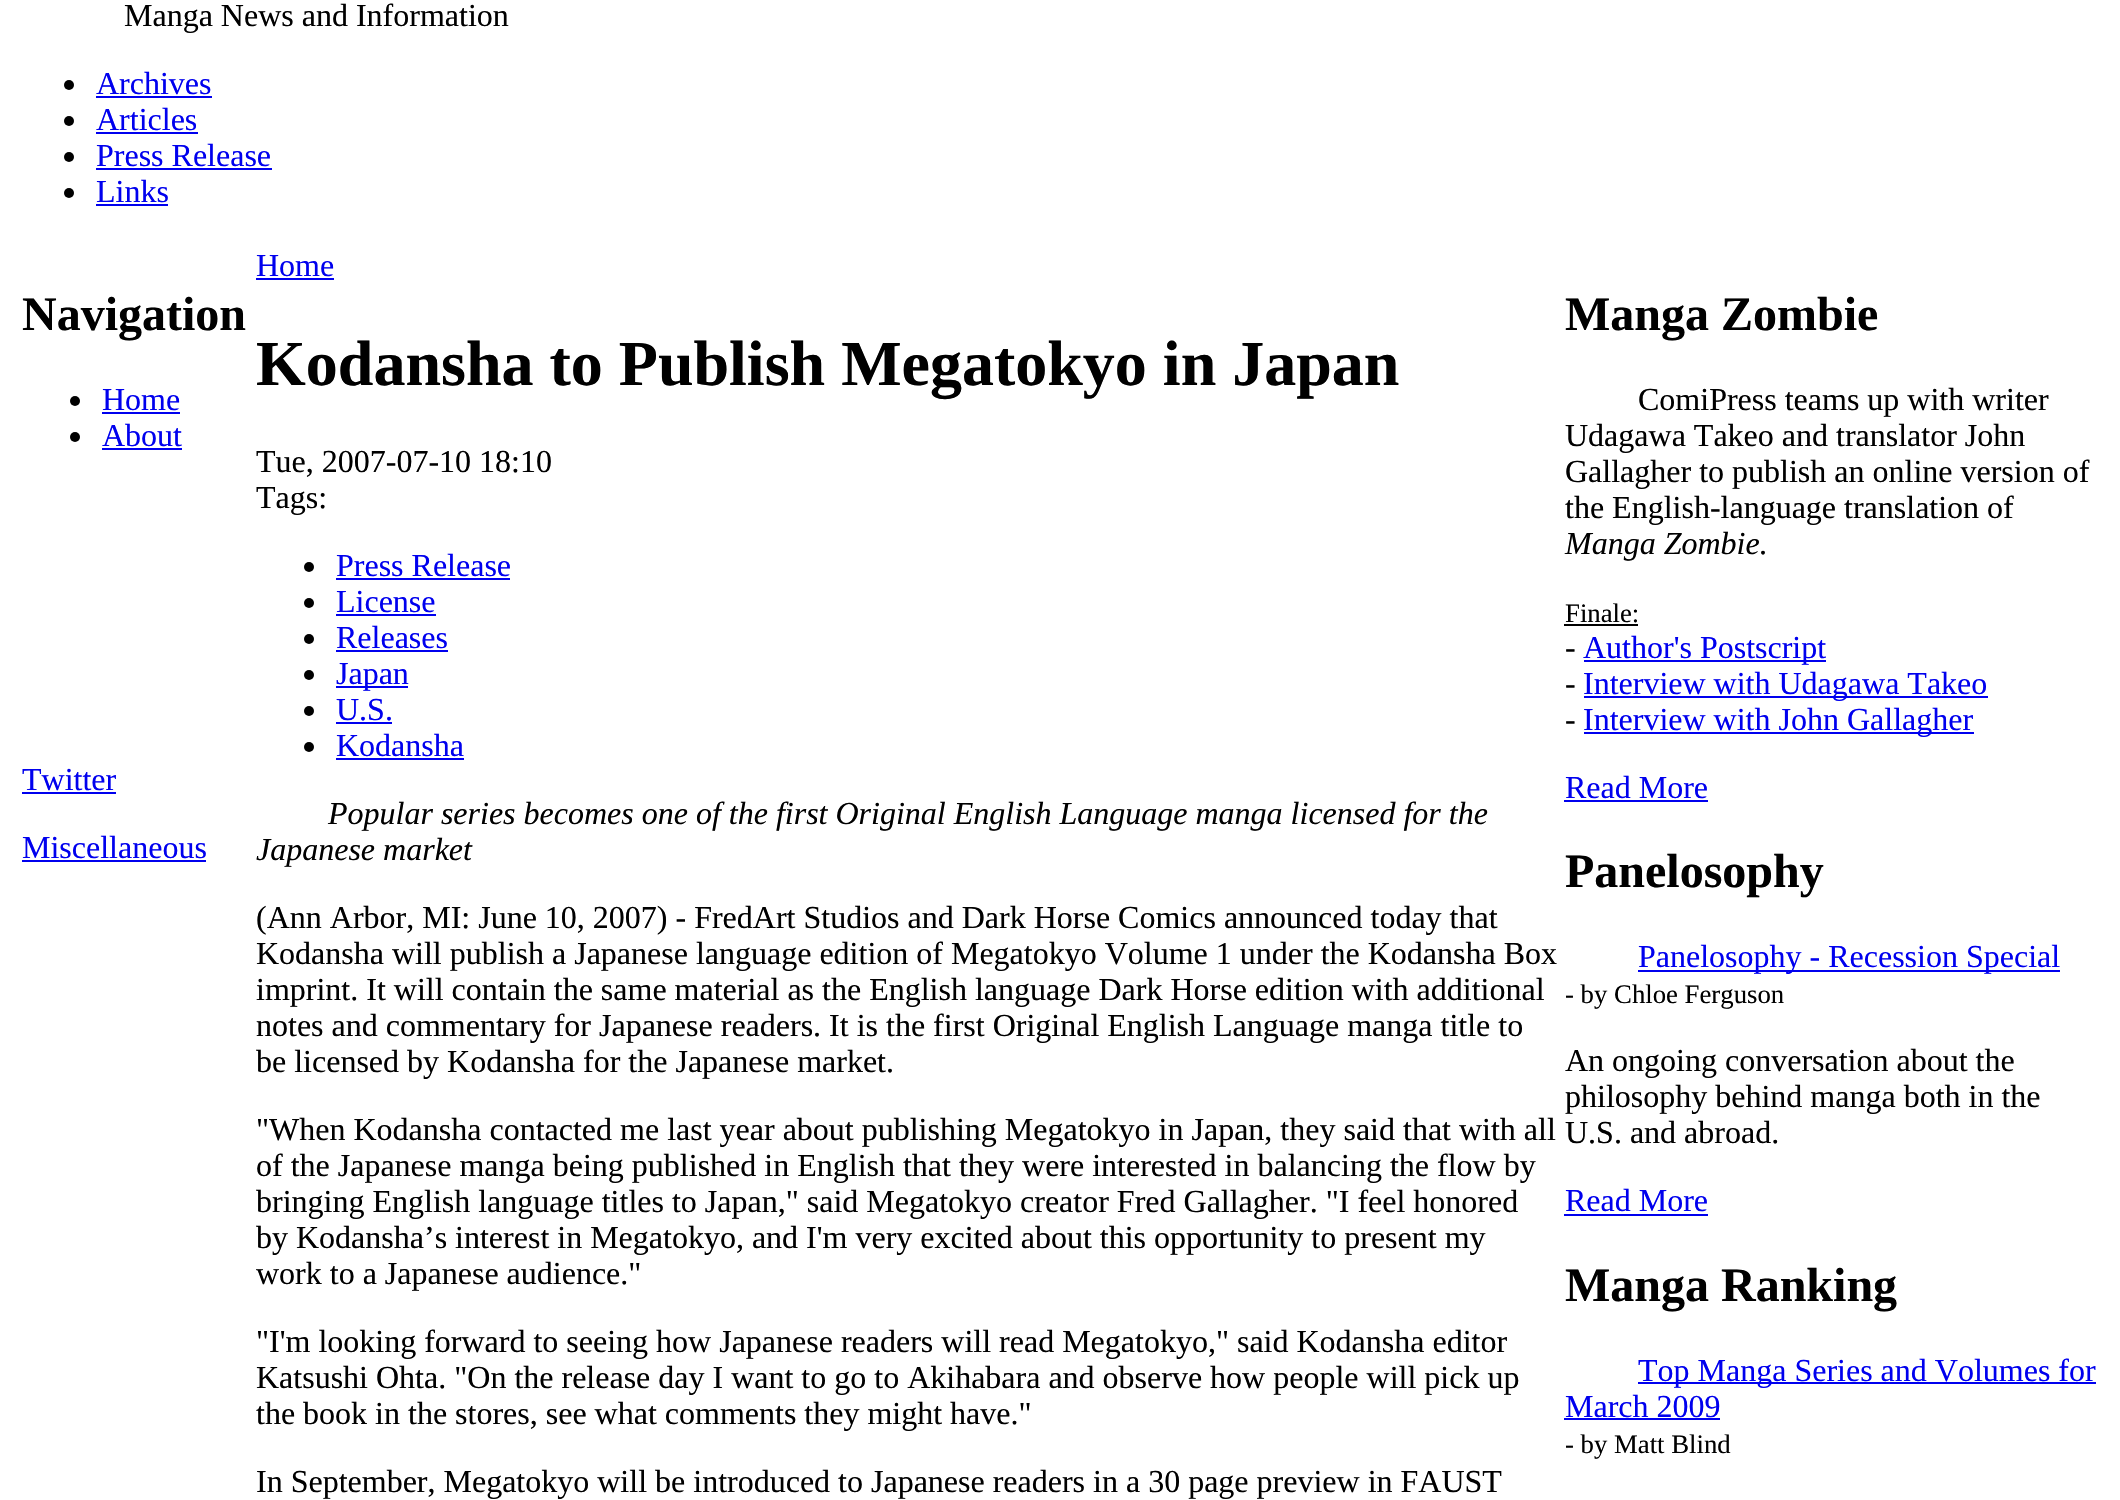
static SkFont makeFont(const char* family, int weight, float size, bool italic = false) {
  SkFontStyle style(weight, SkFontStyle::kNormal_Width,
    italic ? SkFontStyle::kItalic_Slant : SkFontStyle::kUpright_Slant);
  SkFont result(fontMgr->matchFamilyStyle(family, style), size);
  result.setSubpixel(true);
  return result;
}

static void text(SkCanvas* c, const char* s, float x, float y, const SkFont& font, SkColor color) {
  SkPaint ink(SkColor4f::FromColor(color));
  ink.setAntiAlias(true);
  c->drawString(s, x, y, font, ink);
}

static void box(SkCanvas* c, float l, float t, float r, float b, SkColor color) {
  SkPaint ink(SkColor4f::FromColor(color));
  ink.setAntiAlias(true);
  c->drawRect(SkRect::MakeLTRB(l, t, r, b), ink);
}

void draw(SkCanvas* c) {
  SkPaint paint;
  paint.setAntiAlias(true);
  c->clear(0xffffffff);
  SkFont face1 = makeFont("Liberation Serif", 400, 32);
  text(c, "Manga News and Information", 124, 26, face1, 0xff000000);
  paint.setColor(0xff000000);
  c->drawCircle(69, 85, 5, paint);
  text(c, "Archives", 96, 94, face1, 0xff0000ee);
  box(c, 96, 96, 212, 98, 0xff0000ee);
  c->drawCircle(69, 121, 5, paint);
  text(c, "Articles", 96, 130, face1, 0xff0000ee);
  box(c, 96, 132, 198, 134, 0xff0000ee);
  c->drawCircle(69, 157, 5, paint);
  text(c, "Press Release", 96, 166, face1, 0xff0000ee);
  box(c, 96, 168, 272, 170, 0xff0000ee);
  c->drawCircle(69, 193, 5, paint);
  text(c, "Links", 96, 202, face1, 0xff0000ee);
  box(c, 96, 204, 168, 206, 0xff0000ee);
  SkFont face2 = makeFont("Liberation Serif", 700, 48);
  text(c, "Navigation", 22, 330, face2, 0xff000000);
  c->drawCircle(75, 401, 5, paint);
  text(c, "Home", 102, 410, face1, 0xff0000ee);
  box(c, 102, 412, 180, 414, 0xff0000ee);
  c->drawCircle(75, 437, 5, paint);
  text(c, "About", 102, 446, face1, 0xff0000ee);
  box(c, 102, 448, 182, 450, 0xff0000ee);
  text(c, "Twitter", 22, 790, face1, 0xff0000ee);
  box(c, 22, 792, 116, 794, 0xff0000ee);
  text(c, "Miscellaneous", 22, 858, face1, 0xff0000ee);
  box(c, 22, 860, 206, 862, 0xff0000ee);
  text(c, "Home", 256, 276, face1, 0xff0000ee);
  box(c, 256, 278, 334, 280, 0xff0000ee);
  SkFont face3 = makeFont("Liberation Serif", 700, 64);
  text(c, "Kodansha to Publish Megatokyo in Japan", 256, 385, face3, 0xff000000);
  text(c, "Tue, 2007-07-10 18:10", 256, 472, face1, 0xff000000);
  text(c, "Tags:", 256, 508, face1, 0xff000000);
  c->drawCircle(309, 567, 5, paint);
  text(c, "Press Release", 336, 576, face1, 0xff0000ee);
  box(c, 336, 578, 510, 580, 0xff0000ee);
  c->drawCircle(309, 603, 5, paint);
  text(c, "License", 336, 612, face1, 0xff0000ee);
  box(c, 336, 614, 436, 616, 0xff0000ee);
  c->drawCircle(309, 639, 5, paint);
  text(c, "Releases", 336, 648, face1, 0xff0000ee);
  box(c, 336, 650, 448, 652, 0xff0000ee);
  c->drawCircle(309, 675, 5, paint);
  box(c, 336, 686, 408, 688, 0xff0000ee);
  text(c, "Japan", 336, 684, face1, 0xff0000ee);
  c->drawCircle(309, 711, 5, paint);
  text(c, "U.S.", 336, 720, face1, 0xff0000ee);
  box(c, 336, 722, 392, 724, 0xff0000ee);
  c->drawCircle(309, 747, 5, paint);
  text(c, "Kodansha", 336, 756, face1, 0xff0000ee);
  box(c, 336, 758, 464, 760, 0xff0000ee);
  SkFont face4 = makeFont("Liberation Serif", 400, 32, true);
  text(c, "Popular series becomes one of the first Original English Language manga licensed for the", 328, 824, face4, 0xff000000);
  text(c, "Japanese market", 256, 860, face4, 0xff000000);
  text(c, "(Ann Arbor, MI: June 10, 2007) - FredArt Studios and Dark Horse Comics announced today that", 256, 928, face1, 0xff000000);
  text(c, "Kodansha will publish a Japanese language edition of Megatokyo Volume 1 under the Kodansha Box", 256, 964, face1, 0xff000000);
  text(c, "imprint. It will contain the same material as the English language Dark Horse edition with additional", 256, 1000, face1, 0xff000000);
  text(c, "notes and commentary for Japanese readers. It is the first Original English Language manga title to", 256, 1036, face1, 0xff000000);
  text(c, "be licensed by Kodansha for the Japanese market.", 256, 1072, face1, 0xff000000);
  text(c, "\"When Kodansha contacted me last year about publishing Megatokyo in Japan, they said that with all", 256, 1140, face1, 0xff000000);
  text(c, "of the Japanese manga being published in English that they were interested in balancing the flow by", 256, 1176, face1, 0xff000000);
  text(c, "bringing English language titles to Japan,\" said Megatokyo creator Fred Gallagher. \"I feel honored", 256, 1212, face1, 0xff000000);
  text(c, "by Kodansha’s interest in Megatokyo, and I'm very excited about this opportunity to present my", 256, 1248, face1, 0xff000000);
  text(c, "work to a Japanese audience.\"", 256, 1284, face1, 0xff000000);
  text(c, "\"I'm looking forward to seeing how Japanese readers will read Megatokyo,\" said Kodansha editor", 256, 1352, face1, 0xff000000);
  text(c, "Katsushi Ohta. \"On the release day I want to go to Akihabara and observe how people will pick up", 256, 1388, face1, 0xff000000);
  text(c, "the book in the stores, see what comments they might have.\"", 256, 1424, face1, 0xff000000);
  text(c, "In September, Megatokyo will be introduced to Japanese readers in a 30 page preview in FAUST", 256, 1492, face1, 0xff000000);
  text(c, "Manga Zombie", 1565, 330, face2, 0xff000000);
  text(c, "ComiPress teams up with writer", 1638, 410, face1, 0xff000000);
  text(c, "Udagawa Takeo and translator John", 1565, 446, face1, 0xff000000);
  text(c, "Gallagher to publish an online version of", 1565, 482, face1, 0xff000000);
  text(c, "the English-language translation of", 1565, 518, face1, 0xff000000);
  text(c, "Manga Zombie", 1565, 554, face4, 0xff000000);
  text(c, ".", 1759, 554, face1, 0xff000000);
  SkFont face5 = makeFont("Liberation Serif", 400, 26.75f);
  text(c, "Finale:", 1565, 622, face5, 0xff000000);
  box(c, 1564, 624, 1638, 626, 0xff000000);
  text(c, "-", 1565, 658, face1, 0xff000000);
  box(c, 1584, 660, 1826, 662, 0xff0000ee);
  text(c, "Author's Postscript", 1583, 658, face1, 0xff0000ee);
  text(c, "-", 1565, 694, face1, 0xff000000);
  box(c, 1584, 696, 1988, 698, 0xff0000ee);
  text(c, "Interview with Udagawa Takeo", 1583, 694, face1, 0xff0000ee);
  text(c, "-", 1565, 730, face1, 0xff000000);
  box(c, 1584, 732, 1974, 734, 0xff0000ee);
  text(c, "Interview with John Gallagher", 1583, 730, face1, 0xff0000ee);
  text(c, "Read More", 1565, 798, face1, 0xff0000ee);
  box(c, 1564, 800, 1708, 802, 0xff0000ee);
  text(c, "Panelosophy", 1565, 887, face2, 0xff000000);
  box(c, 1638, 970, 2060, 972, 0xff0000ee);
  text(c, "Panelosophy - Recession Special", 1638, 967, face1, 0xff0000ee);
  text(c, "- by Chloe Ferguson", 1565, 1003, face5, 0xff000000);
  text(c, "An ongoing conversation about the", 1565, 1071, face1, 0xff000000);
  text(c, "philosophy behind manga both in the", 1565, 1107, face1, 0xff000000);
  text(c, "U.S. and abroad.", 1565, 1143, face1, 0xff000000);
  text(c, "Read More", 1565, 1211, face1, 0xff0000ee);
  box(c, 1564, 1214, 1708, 1216, 0xff0000ee);
  text(c, "Manga Ranking", 1565, 1301, face2, 0xff000000);
  box(c, 1638, 1382, 2096, 1384, 0xff0000ee);
  text(c, "Top Manga Series and Volumes for", 1638, 1381, face1, 0xff0000ee);
  text(c, "March 2009", 1565, 1417, face1, 0xff0000ee);
  box(c, 1564, 1418, 1720, 1420, 0xff0000ee);
  text(c, "- by Matt Blind", 1565, 1453, face5, 0xff000000);
}
